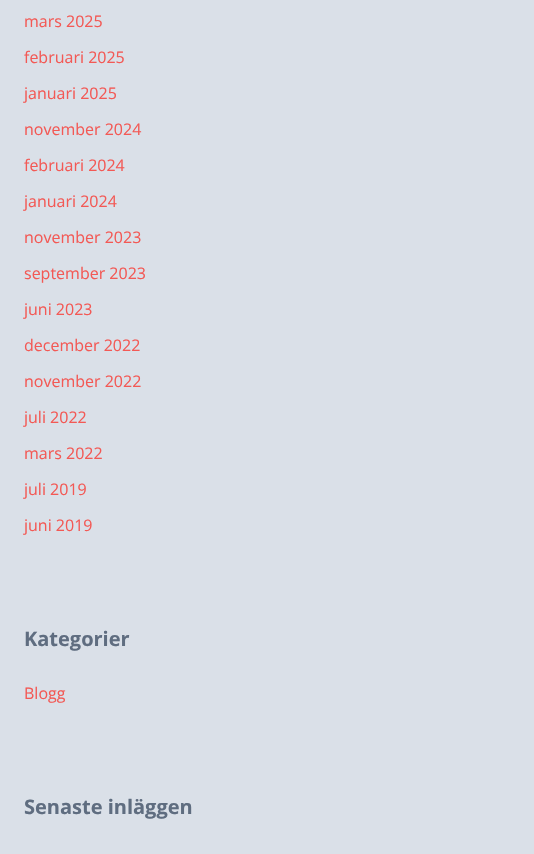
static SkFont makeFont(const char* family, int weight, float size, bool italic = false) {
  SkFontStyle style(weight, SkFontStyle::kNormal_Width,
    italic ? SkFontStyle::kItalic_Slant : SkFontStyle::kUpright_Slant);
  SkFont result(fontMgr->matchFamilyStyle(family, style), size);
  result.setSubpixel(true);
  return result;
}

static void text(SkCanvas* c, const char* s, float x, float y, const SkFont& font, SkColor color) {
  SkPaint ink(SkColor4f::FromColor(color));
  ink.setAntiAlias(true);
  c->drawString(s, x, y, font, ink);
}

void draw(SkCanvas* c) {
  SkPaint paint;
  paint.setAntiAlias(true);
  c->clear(0xffdae0e8);
  SkFont face1 = makeFont("Open Sans", 400, 16);
  text(c, "mars 2025", 24, 27, face1, 0xfff35955);
  text(c, "februari 2025", 24, 63, face1, 0xfff35955);
  text(c, "januari 2025", 24, 99, face1, 0xfff35955);
  text(c, "november 2024", 24, 135, face1, 0xfff35955);
  text(c, "februari 2024", 24, 171, face1, 0xfff35955);
  text(c, "januari 2024", 24, 207, face1, 0xfff35955);
  text(c, "november 2023", 24, 243, face1, 0xfff35955);
  text(c, "september 2023", 24, 279, face1, 0xfff35955);
  text(c, "juni 2023", 24, 315, face1, 0xfff35955);
  text(c, "december 2022", 24, 351, face1, 0xfff35955);
  text(c, "november 2022", 24, 387, face1, 0xfff35955);
  text(c, "juli 2022", 24, 423, face1, 0xfff35955);
  text(c, "mars 2022", 24, 459, face1, 0xfff35955);
  text(c, "juli 2019", 24, 495, face1, 0xfff35955);
  text(c, "juni 2019", 24, 531, face1, 0xfff35955);
  SkFont face2 = makeFont("Open Sans", 700, 20);
  text(c, "Kategorier", 24, 646, face2, 0xff5f6d80);
  text(c, "Blogg", 24, 699, face1, 0xfff35955);
  text(c, "Senaste inläggen", 24, 814, face2, 0xff5f6d80);
}
